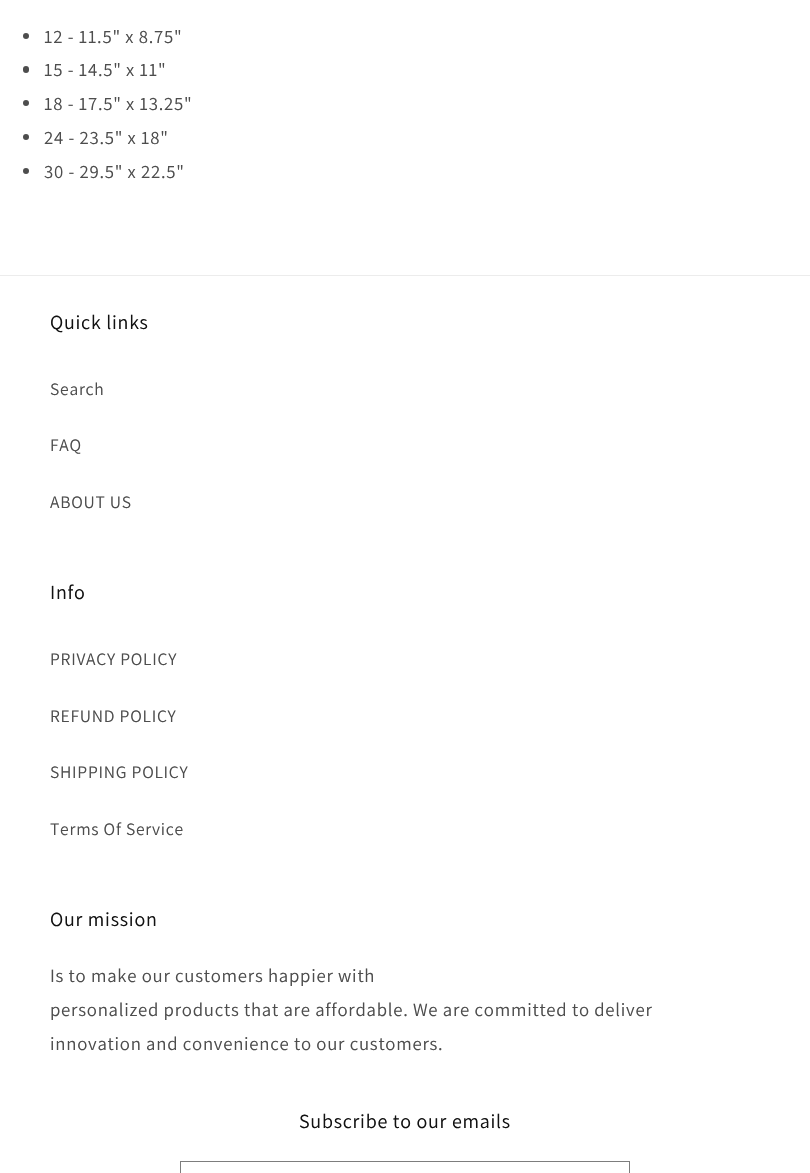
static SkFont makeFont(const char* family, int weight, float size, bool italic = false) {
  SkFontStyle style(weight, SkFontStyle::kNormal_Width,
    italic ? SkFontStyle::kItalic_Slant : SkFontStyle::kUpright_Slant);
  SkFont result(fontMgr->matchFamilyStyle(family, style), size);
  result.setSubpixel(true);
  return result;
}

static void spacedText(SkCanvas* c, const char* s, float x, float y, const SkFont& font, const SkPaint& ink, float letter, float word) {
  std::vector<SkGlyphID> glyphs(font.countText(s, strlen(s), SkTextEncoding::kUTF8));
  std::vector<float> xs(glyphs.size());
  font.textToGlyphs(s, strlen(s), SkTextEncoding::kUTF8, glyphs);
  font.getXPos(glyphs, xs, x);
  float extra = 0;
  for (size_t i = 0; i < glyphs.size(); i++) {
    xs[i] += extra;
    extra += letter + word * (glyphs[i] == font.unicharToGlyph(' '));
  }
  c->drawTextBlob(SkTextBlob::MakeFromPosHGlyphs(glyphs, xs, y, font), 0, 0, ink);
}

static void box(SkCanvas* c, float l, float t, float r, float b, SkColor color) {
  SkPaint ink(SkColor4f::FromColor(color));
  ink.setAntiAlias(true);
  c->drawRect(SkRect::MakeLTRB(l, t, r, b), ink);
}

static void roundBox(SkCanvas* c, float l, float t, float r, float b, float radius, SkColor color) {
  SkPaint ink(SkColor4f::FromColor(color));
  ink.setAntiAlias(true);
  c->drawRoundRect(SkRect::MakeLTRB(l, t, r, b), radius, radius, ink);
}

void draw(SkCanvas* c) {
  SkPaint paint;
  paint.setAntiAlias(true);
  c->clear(0xffffffff);
  paint.setColor(0xff4d4d4d);
  c->drawCircle(26, 36, 3, paint);
  SkFont face1 = makeFont("Assistant", 400, 18.75f);
  spacedText(c, "12 - 11.5\" x 8.75\"", 44, 43, face1, paint, 0.75f, 0);
  roundBox(c, 23, 66, 29, 73, 3, 0xff4d4d4d);
  spacedText(c, "15 - 14.5\" x 11\"", 44, 76, face1, paint, 0.75f, 0);
  c->drawCircle(26, 103, 3, paint);
  spacedText(c, "18 - 17.5\" x 13.25\"", 44, 110, face1, paint, 0.75f, 0);
  c->drawCircle(26, 137, 3, paint);
  spacedText(c, "24 - 23.5\" x 18\"", 44, 144, face1, paint, 0.75f, 0);
  c->drawCircle(26, 171, 3, paint);
  spacedText(c, "30 - 29.5\" x 22.5\"", 44, 178, face1, paint, 0.75f, 0);
  box(c, 0, 275, 810, 276, 0xffececec);
  SkFont face2 = makeFont("Assistant", 400, 20);
  paint.setColor(0xff121212);
  spacedText(c, "Quick links", 50, 329, face2, paint, 0.75f, 0);
  SkFont face3 = makeFont("Assistant", 400, 17.5f);
  paint.setColor(0xff4d4d4d);
  spacedText(c, "Search", 50, 395, face3, paint, 0.75f, 0);
  spacedText(c, "FAQ", 50, 451, face3, paint, 0.75f, 0);
  spacedText(c, "ABOUT US", 50, 508, face3, paint, 0.75f, 0);
  paint.setColor(0xff121212);
  spacedText(c, "Info", 50, 599, face2, paint, 0.75f, 0);
  paint.setColor(0xff4d4d4d);
  spacedText(c, "PRIVACY POLICY", 50, 665, face3, paint, 0.75f, 0);
  spacedText(c, "REFUND POLICY", 50, 722, face3, paint, 0.75f, 0);
  spacedText(c, "SHIPPING POLICY", 50, 778, face3, paint, 0.75f, 0);
  spacedText(c, "Terms Of Service", 50, 835, face3, paint, 0.75f, 0);
  paint.setColor(0xff121212);
  spacedText(c, "Our mission", 50, 926, face2, paint, 0.75f, 0);
  paint.setColor(0xff4d4d4d);
  spacedText(c, "Is to make our customers happier with", 50, 982, face1, paint, 0.75f, 0);
  spacedText(c, "personalized products that are affordable. We are committed to deliver", 50, 1016, face1, paint, 0.75f, 0);
  spacedText(c, "innovation and convenience to our customers.", 50, 1050, face1, paint, 0.75f, 0);
  paint.setColor(0xff121212);
  spacedText(c, "Subscribe to our emails", 299, 1128, face2, paint, 0.75f, 0);
  paint.setStyle(SkPaint::kStroke_Style);
  paint.setStrokeWidth(1);
  paint.setColor(0xff7d7d7d);
  c->drawRect(SkRect::MakeLTRB(180.5f, 1161.5f, 629.5f, 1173.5f), paint);
}
